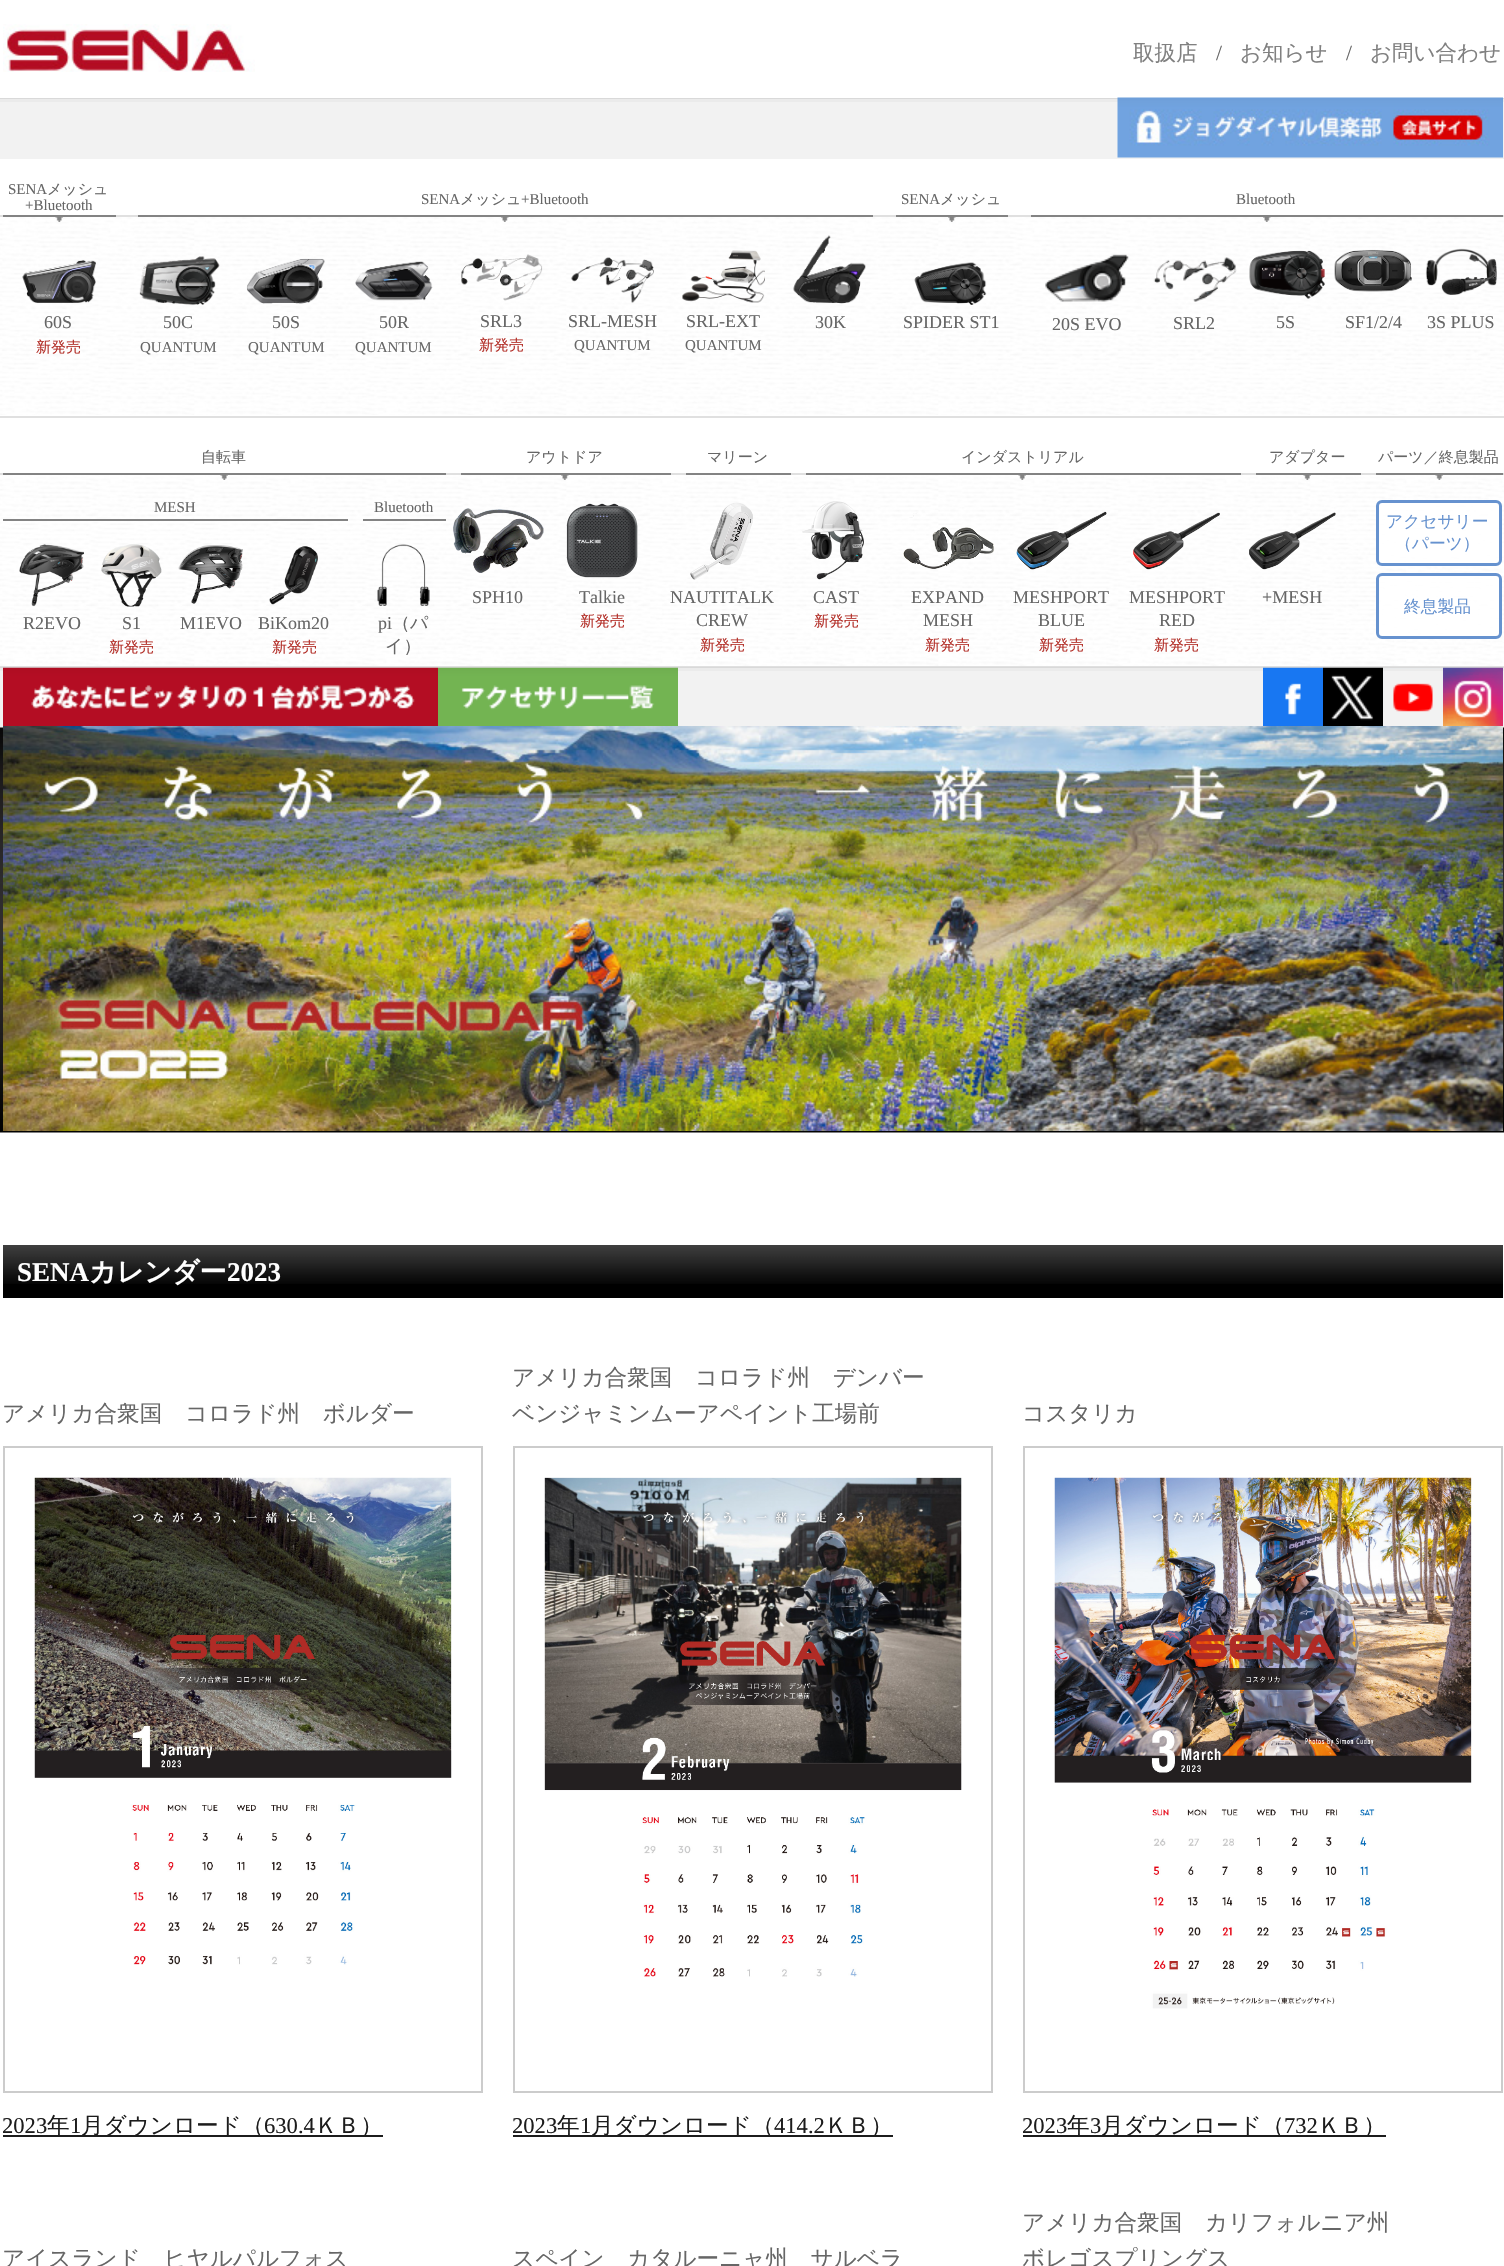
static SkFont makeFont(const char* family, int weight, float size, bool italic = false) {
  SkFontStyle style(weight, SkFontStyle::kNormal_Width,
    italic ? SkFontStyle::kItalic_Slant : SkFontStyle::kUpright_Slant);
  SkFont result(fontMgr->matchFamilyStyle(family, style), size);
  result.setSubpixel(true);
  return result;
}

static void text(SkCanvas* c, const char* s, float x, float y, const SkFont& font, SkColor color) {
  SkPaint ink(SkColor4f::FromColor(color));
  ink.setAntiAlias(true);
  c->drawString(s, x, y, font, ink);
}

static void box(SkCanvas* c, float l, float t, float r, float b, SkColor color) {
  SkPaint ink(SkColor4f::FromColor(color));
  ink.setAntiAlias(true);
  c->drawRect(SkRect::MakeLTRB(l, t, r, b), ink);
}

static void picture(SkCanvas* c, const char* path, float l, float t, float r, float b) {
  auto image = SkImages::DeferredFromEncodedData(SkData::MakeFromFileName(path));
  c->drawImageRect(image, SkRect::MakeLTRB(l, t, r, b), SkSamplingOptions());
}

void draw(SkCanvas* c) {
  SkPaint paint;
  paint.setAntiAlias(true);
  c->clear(0xffffffff);
  box(c, 0, 98, 1504, 99, 0xffd9d9d9);
  picture(c, "img_01.png", 3, 24, 255, 72);
  SkFont face1 = makeFont("WenQuanYi Zen Hei", 500, 21.5f);
  text(c, "取扱店", 1133, 60, face1, 0xff808080);
  SkFont face2 = makeFont("Liberation Serif", 400, 21.5f);
  text(c, "/", 1216, 60, face2, 0xff666666);
  text(c, "お知らせ", 1240, 60, face1, 0xff808080);
  text(c, "/", 1346, 60, face2, 0xff666666);
  text(c, "お問い合わせ", 1370, 60, face1, 0xff808080);
  box(c, 0, 102, 1504, 159, 0xfff2f2f2);
  box(c, 0, 99, 1504, 102, 0xffebebeb);
  picture(c, "img_02.png", 1117, 97, 1503, 158);
  box(c, 0, 215, 1504, 217, 0xffe0e0e0);
  box(c, 3, 215, 116, 217, 0xff838383);
  SkFont face3 = makeFont("Liberation Serif", 400, 15);
  text(c, "SENA", 8, 194, face3, 0xff666666);
  SkFont face4 = makeFont("WenQuanYi Zen Hei", 500, 15);
  text(c, "メッシュ", 47, 194, face4, 0xff666666);
  text(c, "+Bluetooth", 25, 210, face3, 0xff666666);
  picture(c, "img_07.png", 0, 217, 1504, 415);
  picture(c, "img_03.png", 55, 217, 63, 222);
  box(c, 138, 215, 873, 217, 0xff838383);
  text(c, "SENA", 421, 204, face3, 0xff666666);
  text(c, "メッシュ", 460, 204, face4, 0xff666666);
  text(c, "+Bluetooth", 521, 204, face3, 0xff666666);
  picture(c, "img_04.png", 501, 217, 509, 222);
  box(c, 896, 215, 1008, 217, 0xff838383);
  text(c, "SENA", 901, 204, face3, 0xff666666);
  text(c, "メッシュ", 940, 204, face4, 0xff666666);
  picture(c, "img_05.png", 948, 217, 956, 222);
  box(c, 1031, 215, 1503, 217, 0xff838383);
  text(c, "Bluetooth", 1236, 204, face3, 0xff666666);
  picture(c, "img_06.png", 1263, 217, 1271, 222);
  box(c, 0, 416, 1504, 418, 0xffe0e0e0);
  picture(c, "img_08.png", 22, 260, 96, 303);
  SkFont face5 = makeFont("Liberation Serif", 400, 18);
  text(c, "60S", 44, 328, face5, 0xff666666);
  text(c, "新発売", 36, 352, face4, 0xffb22c25);
  picture(c, "img_09.png", 139, 256, 220, 305);
  text(c, "50C", 163, 328, face5, 0xff666666);
  text(c, "QUANTUM", 140, 352, face3, 0xff666666);
  picture(c, "img_10.png", 246, 258, 325, 304);
  text(c, "50S", 272, 328, face5, 0xff666666);
  text(c, "QUANTUM", 248, 352, face3, 0xff666666);
  picture(c, "img_11.png", 355, 261, 433, 301);
  text(c, "50R", 379, 328, face5, 0xff666666);
  text(c, "QUANTUM", 355, 352, face3, 0xff666666);
  picture(c, "img_12.png", 461, 254, 543, 301);
  text(c, "SRL3", 480, 327, face5, 0xff666666);
  text(c, "新発売", 479, 350, face4, 0xffb22c25);
  picture(c, "img_13.png", 571, 257, 654, 303);
  text(c, "SRL-MESH", 568, 327, face5, 0xff666666);
  text(c, "QUANTUM", 574, 350, face3, 0xff666666);
  picture(c, "img_14.png", 682, 250, 765, 303);
  text(c, "SRL-EXT", 686, 327, face5, 0xff666666);
  text(c, "QUANTUM", 685, 350, face3, 0xff666666);
  picture(c, "img_15.png", 793, 235, 866, 304);
  text(c, "30K", 815, 328, face5, 0xff666666);
  picture(c, "img_16.png", 914, 262, 987, 305);
  text(c, "SPIDER ST1", 903, 328, face5, 0xff666666);
  picture(c, "img_17.png", 1045, 254, 1129, 302);
  text(c, "20S EVO", 1052, 330, face5, 0xff666666);
  picture(c, "img_18.png", 1153, 257, 1237, 302);
  text(c, "SRL2", 1173, 329, face5, 0xff666666);
  picture(c, "img_19.png", 1249, 250, 1325, 299);
  text(c, "5S", 1276, 328, face5, 0xff666666);
  picture(c, "img_20.png", 1334, 249, 1412, 292);
  text(c, "SF1/2/4", 1345, 328, face5, 0xff666666);
  picture(c, "img_21.png", 1425, 248, 1497, 295);
  text(c, "3S PLUS", 1427, 328, face5, 0xff666666);
  box(c, 0, 473, 1504, 475, 0xffe0e0e0);
  box(c, 3, 473, 446, 475, 0xff838383);
  text(c, "自転車", 201, 462, face4, 0xff666666);
  picture(c, "img_27.png", 0, 475, 1504, 666);
  picture(c, "img_22.png", 220, 475, 228, 480);
  box(c, 461, 473, 671, 475, 0xff838383);
  text(c, "アウトドア", 526, 462, face4, 0xff666666);
  picture(c, "img_23.png", 561, 475, 569, 480);
  box(c, 686, 473, 791, 475, 0xff838383);
  text(c, "マリーン", 707, 462, face4, 0xff666666);
  box(c, 806, 473, 1241, 475, 0xff838383);
  text(c, "インダストリアル", 961, 462, face4, 0xff666666);
  picture(c, "img_24.png", 1018, 475, 1026, 480);
  box(c, 1256, 473, 1361, 475, 0xff838383);
  text(c, "アダプター", 1269, 462, face4, 0xff666666);
  picture(c, "img_25.png", 1303, 475, 1311, 480);
  box(c, 1376, 473, 1503, 475, 0xff838383);
  text(c, "パーツ／終息製品", 1378, 462, face4, 0xff666666);
  picture(c, "img_26.png", 1435, 475, 1443, 480);
  box(c, 0, 666, 1504, 667, 0xffe0e0e0);
  box(c, 0, 667, 1504, 668, 0xffd9d9d9);
  box(c, 3, 519, 348, 521, 0xff838383);
  text(c, "MESH", 154, 512, face3, 0xff666666);
  picture(c, "img_28.png", 19, 544, 84, 607);
  text(c, "R2EVO", 23, 629, face5, 0xff666666);
  picture(c, "img_29.png", 101, 544, 162, 607);
  text(c, "S1", 122, 629, face5, 0xff666666);
  text(c, "新発売", 109, 652, face4, 0xffb22c25);
  picture(c, "img_30.png", 178, 545, 243, 604);
  text(c, "M1EVO", 180, 629, face5, 0xff666666);
  picture(c, "img_31.png", 269, 546, 318, 605);
  text(c, "BiKom20", 258, 629, face5, 0xff666666);
  text(c, "新発売", 272, 652, face4, 0xffb22c25);
  box(c, 363, 519, 446, 521, 0xff838383);
  text(c, "Bluetooth", 374, 512, face3, 0xff666666);
  picture(c, "img_32.png", 377, 544, 430, 606);
  text(c, "pi", 378, 629, face5, 0xff666666);
  SkFont face6 = makeFont("WenQuanYi Zen Hei", 500, 18);
  text(c, "（パ", 392, 629, face6, 0xff666666);
  text(c, "イ）", 385, 652, face6, 0xff666666);
  picture(c, "img_33.png", 453, 508, 544, 573);
  text(c, "SPH10", 472, 603, face5, 0xff666666);
  picture(c, "img_34.png", 566, 503, 638, 578);
  text(c, "Talkie", 579, 603, face5, 0xff666666);
  text(c, "新発売", 580, 626, face4, 0xffb22c25);
  picture(c, "img_35.png", 690, 502, 753, 580);
  text(c, "NAUTITALK", 670, 603, face5, 0xff666666);
  text(c, "CREW", 696, 626, face5, 0xff666666);
  text(c, "新発売", 700, 650, face4, 0xffb22c25);
  picture(c, "img_36.png", 802, 501, 864, 580);
  text(c, "CAST", 813, 603, face5, 0xff666666);
  text(c, "新発売", 814, 626, face4, 0xffb22c25);
  picture(c, "img_37.png", 903, 512, 994, 569);
  text(c, "EXPAND", 911, 603, face5, 0xff666666);
  text(c, "MESH", 923, 626, face5, 0xff666666);
  text(c, "新発売", 925, 650, face4, 0xffb22c25);
  picture(c, "img_38.png", 1016, 511, 1107, 570);
  text(c, "MESHPORT", 1013, 603, face5, 0xff666666);
  text(c, "BLUE", 1038, 626, face5, 0xff666666);
  text(c, "新発売", 1039, 650, face4, 0xffb22c25);
  picture(c, "img_39.png", 1133, 512, 1220, 570);
  text(c, "MESHPORT", 1129, 603, face5, 0xff666666);
  text(c, "RED", 1159, 626, face5, 0xff666666);
  text(c, "新発売", 1154, 650, face4, 0xffb22c25);
  picture(c, "img_40.png", 1249, 512, 1336, 570);
  text(c, "+MESH", 1262, 603, face5, 0xff666666);
  paint.setColor(0xccffffff);
  c->drawRoundRect(SkRect::MakeLTRB(1377.5f, 501.5f, 1500.5f, 564.5f), 4.5f, 4.5f, paint);
  paint.setStyle(SkPaint::kStroke_Style);
  paint.setStrokeWidth(3);
  paint.setColor(0xff6692cf);
  c->drawRoundRect(SkRect::MakeLTRB(1377.5f, 501.5f, 1500.5f, 564.5f), 4.5f, 4.5f, paint);
  SkFont face7 = makeFont("WenQuanYi Zen Hei", 500, 16.75f);
  text(c, "アクセサリー", 1386, 527, face7, 0xff6692cf);
  text(c, "（パーツ）", 1395, 549, face7, 0xff6692cf);
  paint.setStyle(SkPaint::kFill_Style);
  paint.setColor(0xccffffff);
  c->drawRoundRect(SkRect::MakeLTRB(1377.5f, 574.5f, 1500.5f, 637.5f), 4.5f, 4.5f, paint);
  paint.setStyle(SkPaint::kStroke_Style);
  paint.setColor(0xff6692cf);
  c->drawRoundRect(SkRect::MakeLTRB(1377.5f, 574.5f, 1500.5f, 637.5f), 4.5f, 4.5f, paint);
  text(c, "終息製品", 1404, 612, face7, 0xff6692cf);
  box(c, 0, 671, 1504, 728, 0xfff2f2f2);
  box(c, 0, 668, 1504, 671, 0xffebebeb);
  picture(c, "img_41.png", 3, 667, 438, 726);
  picture(c, "img_42.png", 438, 667, 678, 726);
  picture(c, "img_43.png", 1263, 667, 1323, 726);
  picture(c, "img_44.png", 1323, 667, 1383, 726);
  picture(c, "img_45.png", 1383, 668, 1443, 712);
  picture(c, "img_46.png", 1443, 667, 1503, 726);
  picture(c, "img_47.png", 0, 727, 1504, 1133);
  picture(c, "img_48.png", 3, 726, 1503, 1131);
  box(c, 3, 1284, 1503, 1298, 0xff000000);
  picture(c, "img_49.png", 3, 1245, 1503, 1284);
  SkFont face8 = makeFont("Liberation Serif", 700, 27);
  text(c, "SENA", 17, 1281, face8, 0xffffffff);
  SkFont face9 = makeFont("WenQuanYi Zen Hei", 700, 27);
  text(c, "カレンダー", 89, 1281, face9, 0xffffffff);
  text(c, "2023", 227, 1281, face8, 0xffffffff);
  SkFont face10 = makeFont("WenQuanYi Zen Hei", 500, 22.6f);
  text(c, "アメリカ合衆国　コロラド州　ボルダー", 2, 1421, face10, 0xff666666);
  paint.setStrokeWidth(2);
  paint.setColor(0xffcccccc);
  c->drawRect(SkRect::MakeLTRB(4, 1447, 482, 2092), paint);
  picture(c, "img_50.png", 34, 1477, 452, 1965);
  SkFont face11 = makeFont("Liberation Serif", 400, 22.6f);
  text(c, "2023", 2, 2133, face11, 0xff1c1c1c);
  box(c, 3, 2135, 383, 2137, 0xff1c1c1c);
  text(c, "年", 47, 2133, face10, 0xff1c1c1c);
  text(c, "1", 70, 2133, face11, 0xff1c1c1c);
  text(c, "月ダウンロード（", 81, 2133, face10, 0xff1c1c1c);
  text(c, "630.4", 264, 2133, face11, 0xff1c1c1c);
  text(c, "ＫＢ）", 315, 2133, face10, 0xff1c1c1c);
  text(c, "アメリカ合衆国　コロラド州　デンバー", 512, 1385, face10, 0xff666666);
  text(c, "ベンジャミンムーアペイント工場前", 512, 1421, face10, 0xff666666);
  c->drawRect(SkRect::MakeLTRB(514, 1447, 992, 2092), paint);
  picture(c, "img_51.png", 544, 1477, 962, 1977);
  text(c, "2023", 512, 2133, face11, 0xff1c1c1c);
  box(c, 513, 2135, 893, 2137, 0xff1c1c1c);
  text(c, "年", 557, 2133, face10, 0xff1c1c1c);
  text(c, "1", 580, 2133, face11, 0xff1c1c1c);
  text(c, "月ダウンロード（", 591, 2133, face10, 0xff1c1c1c);
  text(c, "414.2", 774, 2133, face11, 0xff1c1c1c);
  text(c, "ＫＢ）", 825, 2133, face10, 0xff1c1c1c);
  text(c, "コスタリカ", 1022, 1421, face10, 0xff666666);
  c->drawRect(SkRect::MakeLTRB(1024, 1447, 1502, 2092), paint);
  picture(c, "img_52.png", 1054, 1477, 1472, 2009);
  text(c, "2023", 1022, 2133, face11, 0xff1c1c1c);
  box(c, 1023, 2135, 1386, 2137, 0xff1c1c1c);
  text(c, "年", 1067, 2133, face10, 0xff1c1c1c);
  text(c, "3", 1090, 2133, face11, 0xff1c1c1c);
  text(c, "月ダウンロード（", 1101, 2133, face10, 0xff1c1c1c);
  text(c, "732", 1284, 2133, face11, 0xff1c1c1c);
  text(c, "ＫＢ）", 1318, 2133, face10, 0xff1c1c1c);
  text(c, "アイスランド　ヒヤルパルフォス", 2, 2266, face10, 0xff666666);
  text(c, "スペイン　カタルーニャ州　サルベラ", 512, 2266, face10, 0xff666666);
  text(c, "アメリカ合衆国　カリフォルニア州", 1022, 2230, face10, 0xff666666);
  text(c, "ボレゴスプリングス", 1022, 2266, face10, 0xff666666);
}
